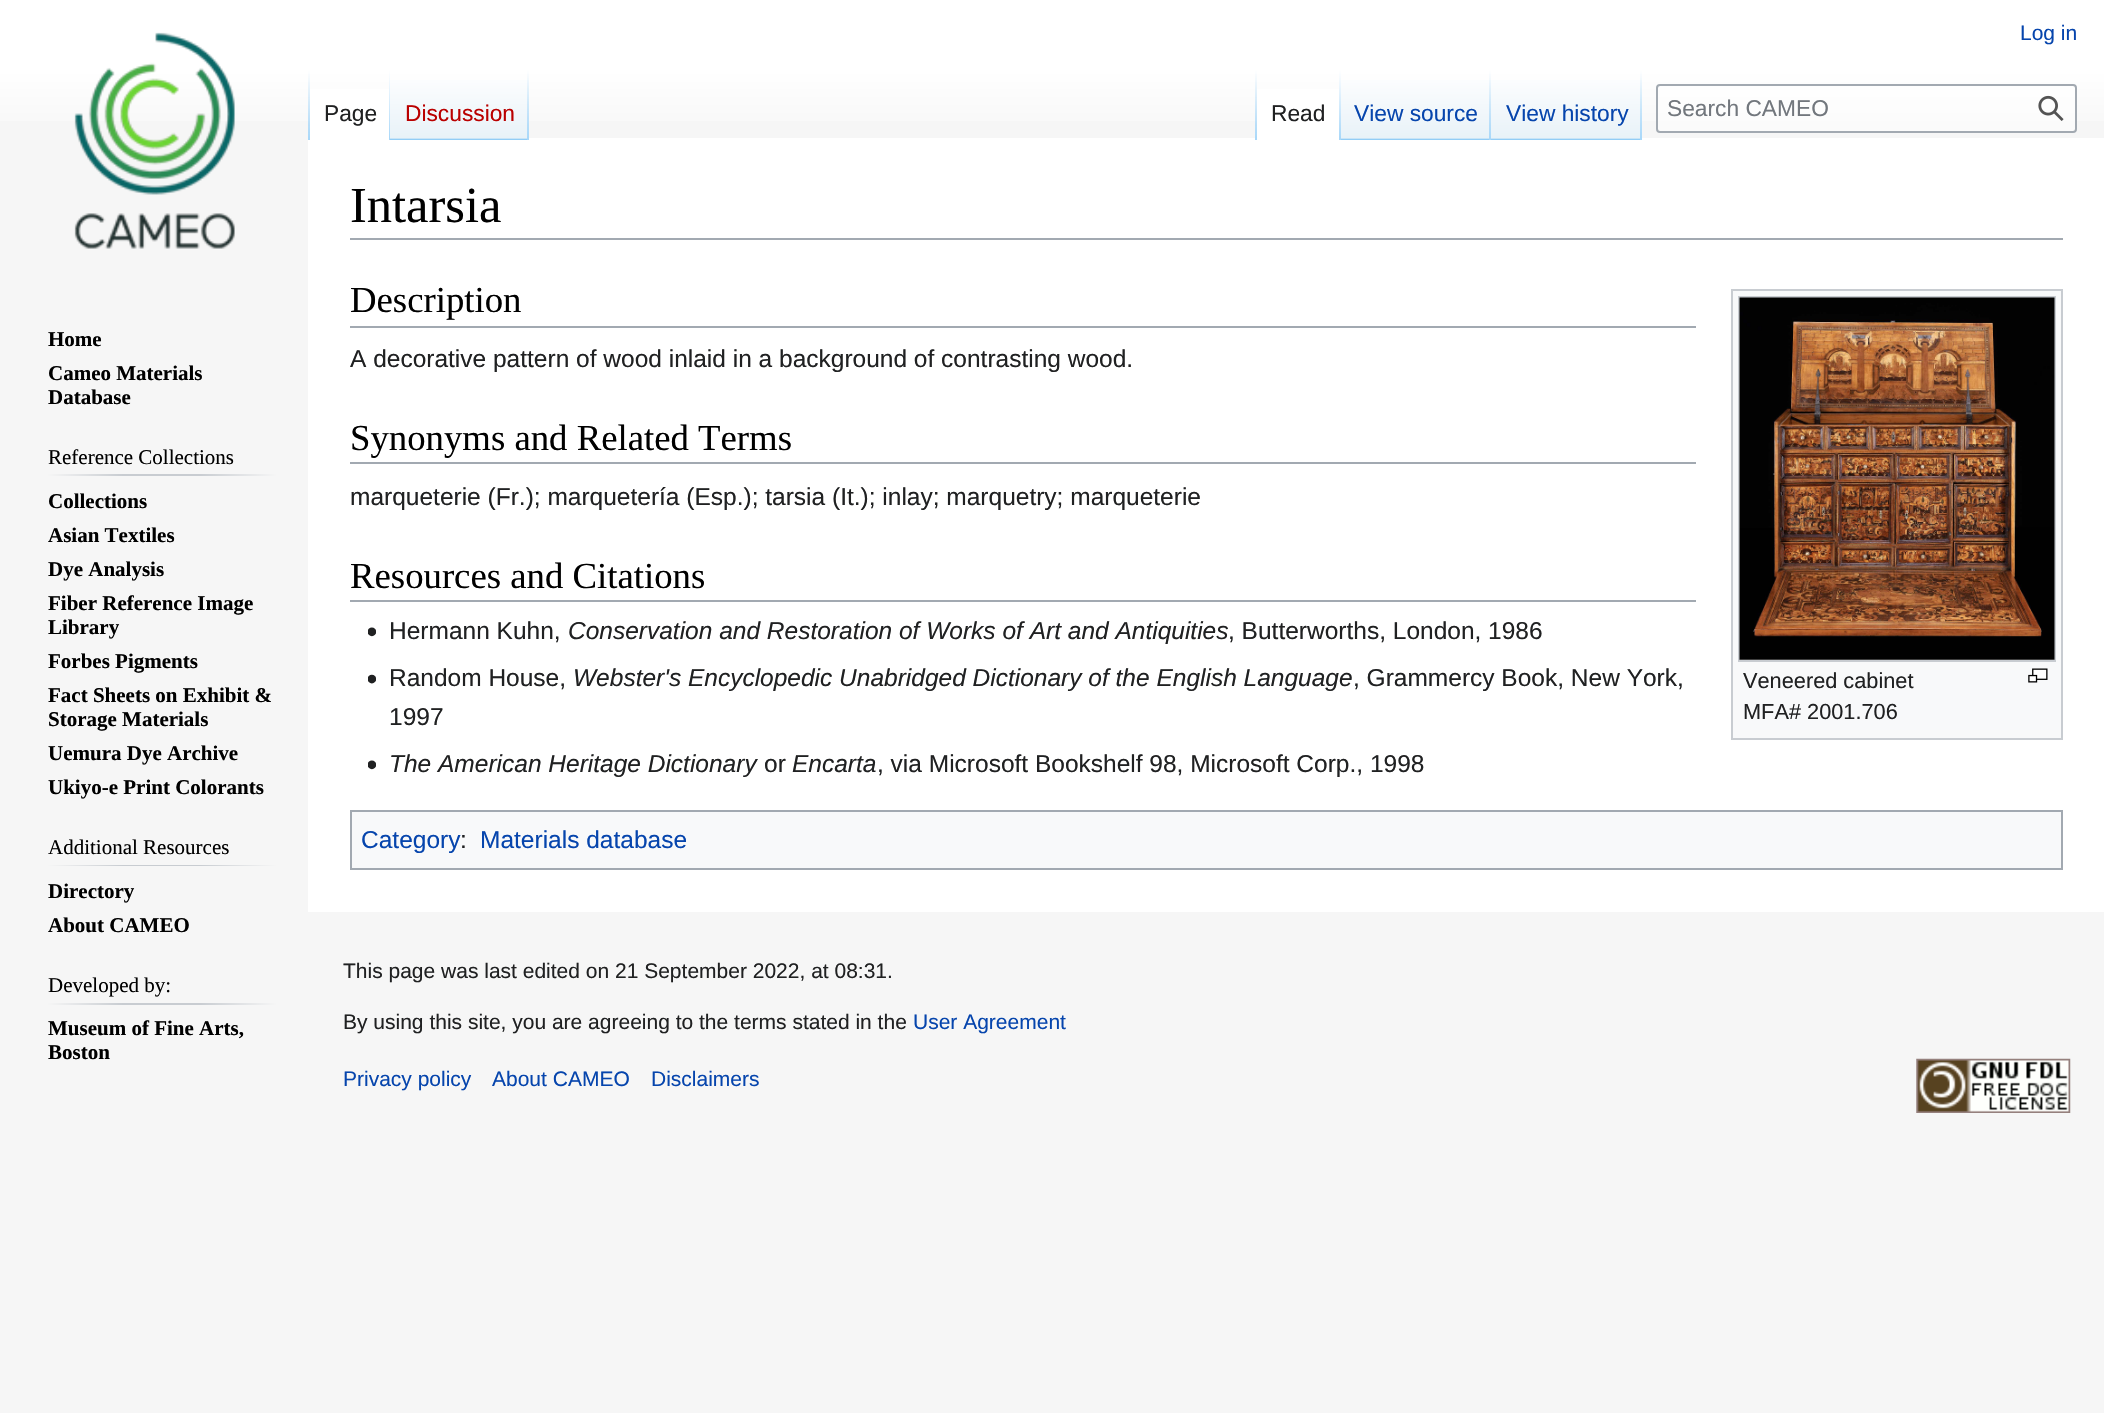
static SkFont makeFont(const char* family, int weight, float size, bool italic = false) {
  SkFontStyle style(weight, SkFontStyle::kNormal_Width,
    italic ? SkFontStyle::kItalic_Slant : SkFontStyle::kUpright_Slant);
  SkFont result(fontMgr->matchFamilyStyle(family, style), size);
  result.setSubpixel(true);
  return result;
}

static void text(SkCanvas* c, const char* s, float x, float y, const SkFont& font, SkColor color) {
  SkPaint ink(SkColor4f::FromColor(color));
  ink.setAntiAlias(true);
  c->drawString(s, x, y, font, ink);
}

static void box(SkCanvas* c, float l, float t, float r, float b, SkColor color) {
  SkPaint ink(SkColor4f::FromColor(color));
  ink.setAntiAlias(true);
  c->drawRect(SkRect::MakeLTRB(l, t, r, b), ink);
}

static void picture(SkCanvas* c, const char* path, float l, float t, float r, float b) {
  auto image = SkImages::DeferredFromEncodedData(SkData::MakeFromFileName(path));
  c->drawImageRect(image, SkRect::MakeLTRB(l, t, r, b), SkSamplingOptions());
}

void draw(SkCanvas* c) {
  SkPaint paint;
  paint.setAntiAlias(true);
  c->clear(0xfff6f6f6);
  {
    const SkColor colors[] = {0xffffffff, 0xfff6f6f6};
    const float stops[] = {0.5f, 1};
    const SkPoint ends[] = {{1053, 0}, {1053, 140}};
    paint.setShader(SkGradientShader::MakeLinear(ends, colors, stops, 2, SkTileMode::kClamp));
    paint.setAlpha(255);
  }
  c->drawRect(SkRect::MakeLTRB(0, 0, 2104, 121), paint);
  SkFont face1 = makeFont("Liberation Sans", 400, 21);
  text(c, "Log in", 2020, 40, face1, 0xff0645ad);
  box(c, 308, 138, 2104, 912, 0xffffffff);
  {
    const SkColor colors[] = {0x00a7d7f9, 0xffa7d7f9};
    const float stops[] = {0, 1};
    const SkPoint ends[] = {{309, 70}, {309, 140}};
    paint.setShader(SkGradientShader::MakeLinear(ends, colors, stops, 2, SkTileMode::kClamp));
    paint.setAlpha(255);
  }
  c->drawRect(SkRect::MakeLTRB(308, 70, 310, 140), paint);
  box(c, 310, 89, 389, 138, 0xffffffff);
  {
    const SkColor colors[] = {0xffffffff, 0xffa7d7f9};
    const float stops[] = {0, 1};
    const SkPoint ends[] = {{389, 70}, {389, 140}};
    paint.setShader(SkGradientShader::MakeLinear(ends, colors, stops, 2, SkTileMode::kClamp));
    paint.setAlpha(255);
  }
  c->drawRect(SkRect::MakeLTRB(389, 70, 390, 140), paint);
  SkFont face2 = makeFont("Liberation Sans", 400, 22.75f);
  text(c, "Page", 324, 121, face2, 0xff202122);
  {
    const SkColor colors[] = {0xff77c1f6, 0xffe8f2f8, 0xffffffff};
    const float stops[] = {0, 0.03f, 1};
    const SkPoint ends[] = {{459, 140}, {459, 70}};
    paint.setShader(SkGradientShader::MakeLinear(ends, colors, stops, 3, SkTileMode::kClamp));
    paint.setAlpha(255);
  }
  c->drawRect(SkRect::MakeLTRB(390, 80, 529, 140), paint);
  {
    const SkColor colors[] = {0x00a7d7f9, 0xffa7d7f9};
    const float stops[] = {0, 1};
    const SkPoint ends[] = {{528, 70}, {528, 140}};
    paint.setShader(SkGradientShader::MakeLinear(ends, colors, stops, 2, SkTileMode::kClamp));
    paint.setAlpha(255);
  }
  c->drawRect(SkRect::MakeLTRB(527, 70, 529, 140), paint);
  text(c, "Discussion", 405, 121, face2, 0xffba0000);
  {
    const SkColor colors[] = {0x00a7d7f9, 0xffa7d7f9};
    const float stops[] = {0, 1};
    const SkPoint ends[] = {{1256, 70}, {1256, 140}};
    paint.setShader(SkGradientShader::MakeLinear(ends, colors, stops, 2, SkTileMode::kClamp));
    paint.setAlpha(255);
  }
  c->drawRect(SkRect::MakeLTRB(1255, 70, 1257, 140), paint);
  box(c, 1257, 89, 1339, 138, 0xffffffff);
  {
    const SkColor colors[] = {0xffffffff, 0xffa7d7f9};
    const float stops[] = {0, 1};
    const SkPoint ends[] = {{1340, 70}, {1340, 140}};
    paint.setShader(SkGradientShader::MakeLinear(ends, colors, stops, 2, SkTileMode::kClamp));
    paint.setAlpha(255);
  }
  c->drawRect(SkRect::MakeLTRB(1339, 70, 1341, 140), paint);
  text(c, "Read", 1271, 121, face2, 0xff202122);
  {
    const SkColor colors[] = {0xff77c1f6, 0xffe8f2f8, 0xffffffff};
    const float stops[] = {0, 0.03f, 1};
    const SkPoint ends[] = {{1416, 140}, {1416, 70}};
    paint.setShader(SkGradientShader::MakeLinear(ends, colors, stops, 3, SkTileMode::kClamp));
    paint.setAlpha(255);
  }
  c->drawRect(SkRect::MakeLTRB(1341, 80, 1491, 140), paint);
  {
    const SkColor colors[] = {0x00a7d7f9, 0xffa7d7f9};
    const float stops[] = {0, 1};
    const SkPoint ends[] = {{1490, 70}, {1490, 140}};
    paint.setShader(SkGradientShader::MakeLinear(ends, colors, stops, 2, SkTileMode::kClamp));
    paint.setAlpha(255);
  }
  c->drawRect(SkRect::MakeLTRB(1489, 70, 1491, 140), paint);
  text(c, "View source", 1354, 121, face2, 0xff0645ad);
  {
    const SkColor colors[] = {0xff77c1f6, 0xffe8f2f8, 0xffffffff};
    const float stops[] = {0, 0.03f, 1};
    const SkPoint ends[] = {{1566, 140}, {1566, 70}};
    paint.setShader(SkGradientShader::MakeLinear(ends, colors, stops, 3, SkTileMode::kClamp));
    paint.setAlpha(255);
  }
  c->drawRect(SkRect::MakeLTRB(1491, 80, 1642, 140), paint);
  {
    const SkColor colors[] = {0x00a7d7f9, 0xffa7d7f9};
    const float stops[] = {0, 1};
    const SkPoint ends[] = {{1641, 70}, {1641, 140}};
    paint.setShader(SkGradientShader::MakeLinear(ends, colors, stops, 2, SkTileMode::kClamp));
    paint.setAlpha(255);
  }
  c->drawRect(SkRect::MakeLTRB(1640, 70, 1642, 140), paint);
  text(c, "View history", 1506, 121, face2, 0xff0645ad);
  paint.setShader(nullptr);
  paint.setColor(0x80ffffff);
  c->drawRoundRect(SkRect::MakeLTRB(1657, 85, 2076, 132), 3, 3, paint);
  paint.setStyle(SkPaint::kStroke_Style);
  paint.setStrokeWidth(2);
  paint.setColor(0xffa2a9b1);
  c->drawRoundRect(SkRect::MakeLTRB(1657, 85, 2076, 132), 3, 3, paint);
  text(c, "Search CAMEO", 1667, 116, face2, 0xff72777d);
  picture(c, "img_01.png", 2038, 95, 2064, 121);
  picture(c, "img_02.png", 74, 32, 235, 249);
  SkFont face3 = makeFont("Liberation Serif", 700, 21);
  text(c, "Home", 48, 346, face3, 0xff000000);
  text(c, "Cameo Materials", 48, 380, face3, 0xff000000);
  text(c, "Database", 48, 404, face3, 0xff000000);
  paint.setStyle(SkPaint::kFill_Style);
  {
    const SkColor colors[] = {0xfff6f6f6, 0xffc8ccd1, 0xffc8ccd1, 0xfff6f6f6};
    const float stops[] = {0, 0.33f, 0.66f, 1};
    const SkPoint ends[] = {{47, 475}, {277, 475}};
    paint.setShader(SkGradientShader::MakeLinear(ends, colors, stops, 4, SkTileMode::kClamp));
    paint.setAlpha(255);
  }
  c->drawRect(SkRect::MakeLTRB(47, 474, 277, 476), paint);
  SkFont face4 = makeFont("Liberation Serif", 400, 21);
  text(c, "Reference Collections", 48, 464, face4, 0xff000000);
  text(c, "Collections", 48, 508, face3, 0xff000000);
  text(c, "Asian Textiles", 48, 542, face3, 0xff000000);
  text(c, "Dye Analysis", 48, 576, face3, 0xff000000);
  text(c, "Fiber Reference Image", 48, 610, face3, 0xff000000);
  text(c, "Library", 48, 634, face3, 0xff000000);
  text(c, "Forbes Pigments", 48, 668, face3, 0xff000000);
  text(c, "Fact Sheets on Exhibit &", 48, 702, face3, 0xff000000);
  text(c, "Storage Materials", 48, 726, face3, 0xff000000);
  text(c, "Uemura Dye Archive", 48, 760, face3, 0xff000000);
  text(c, "Ukiyo-e Print Colorants", 48, 794, face3, 0xff000000);
  {
    const SkColor colors[] = {0xfff6f6f6, 0xffc8ccd1, 0xffc8ccd1, 0xfff6f6f6};
    const float stops[] = {0, 0.33f, 0.66f, 1};
    const SkPoint ends[] = {{47, 865}, {277, 865}};
    paint.setShader(SkGradientShader::MakeLinear(ends, colors, stops, 4, SkTileMode::kClamp));
    paint.setAlpha(255);
  }
  c->drawRect(SkRect::MakeLTRB(47, 865, 277, 866), paint);
  text(c, "Additional Resources", 48, 854, face4, 0xff000000);
  text(c, "Directory", 48, 898, face3, 0xff000000);
  text(c, "About CAMEO", 48, 932, face3, 0xff000000);
  {
    const SkColor colors[] = {0xfff6f6f6, 0xffc8ccd1, 0xffc8ccd1, 0xfff6f6f6};
    const float stops[] = {0, 0.33f, 0.66f, 1};
    const SkPoint ends[] = {{47, 1004}, {277, 1004}};
    paint.setShader(SkGradientShader::MakeLinear(ends, colors, stops, 4, SkTileMode::kClamp));
    paint.setAlpha(255);
  }
  c->drawRect(SkRect::MakeLTRB(47, 1003, 277, 1005), paint);
  text(c, "Developed by:", 48, 992, face4, 0xff000000);
  text(c, "Museum of Fine Arts,", 48, 1035, face3, 0xff000000);
  text(c, "Boston", 48, 1059, face3, 0xff000000);
  box(c, 350, 238, 2063, 240, 0xffa2a9b1);
  SkFont face5 = makeFont("Liberation Serif", 400, 50.5f);
  text(c, "Intarsia", 350, 222, face5, 0xff000000);
  box(c, 350, 326, 1696, 328, 0xffa2a9b1);
  SkFont face6 = makeFont("Liberation Serif", 400, 36.75f);
  text(c, "Description", 350, 312, face6, 0xff000000);
  SkFont face7 = makeFont("Liberation Sans", 400, 24.5f);
  text(c, "A decorative pattern of wood inlaid in a background of contrasting wood.", 350, 367, face7, 0xff202122);
  box(c, 350, 462, 1696, 464, 0xffa2a9b1);
  text(c, "Synonyms and Related Terms", 350, 450, face6, 0xff000000);
  text(c, "marqueterie (Fr.); marquetería (Esp.); tarsia (It.); inlay; marquetry; marqueterie", 350, 505, face7, 0xff202122);
  box(c, 350, 600, 1696, 602, 0xffa2a9b1);
  text(c, "Resources and Citations", 350, 588, face6, 0xff000000);
  picture(c, "img_03.png", 368, 627, 376, 637);
  text(c, "Hermann Kuhn,", 389, 639, face7, 0xff202122);
  SkFont face8 = makeFont("Liberation Sans", 400, 24.5f, true);
  text(c, "Conservation and Restoration of Works of Art and Antiquities", 568, 639, face8, 0xff202122);
  text(c, ", Butterworths, London, 1986", 1228, 639, face7, 0xff202122);
  picture(c, "img_04.png", 368, 674, 376, 684);
  text(c, "Random House,", 389, 686, face7, 0xff202122);
  text(c, "Webster's Encyclopedic Unabridged Dictionary of the English Language", 573, 686, face8, 0xff202122);
  text(c, ", Grammercy Book, New York,", 1353, 686, face7, 0xff202122);
  text(c, "1997", 389, 725, face7, 0xff202122);
  paint.setShader(nullptr);
  paint.setColor(0xfff8f9fa);
  c->drawRect(SkRect::MakeLTRB(1732, 290, 2062, 739), paint);
  paint.setStyle(SkPaint::kStroke_Style);
  paint.setColor(0xffc8ccd1);
  c->drawRect(SkRect::MakeLTRB(1732, 290, 2062, 739), paint);
  c->drawRect(SkRect::MakeLTRB(1739, 297, 2055, 661), paint);
  picture(c, "img_05.png", 1739, 297, 2055, 660);
  SkFont face9 = makeFont("Liberation Sans", 400, 21.75f);
  text(c, "Veneered cabinet", 1743, 688, face9, 0xff202122);
  picture(c, "img_06.png", 2028, 668, 2048, 683);
  text(c, "MFA# 2001.706", 1743, 719, face9, 0xff202122);
  picture(c, "img_07.png", 368, 760, 376, 770);
  text(c, "The American Heritage Dictionary", 389, 772, face8, 0xff202122);
  text(c, "or", 764, 772, face7, 0xff202122);
  text(c, "Encarta", 792, 772, face8, 0xff202122);
  text(c, ", via Microsoft Bookshelf 98, Microsoft Corp., 1998", 877, 772, face7, 0xff202122);
  paint.setStyle(SkPaint::kFill_Style);
  paint.setColor(0xfff8f9fa);
  c->drawRect(SkRect::MakeLTRB(351, 811, 2062, 869), paint);
  paint.setStyle(SkPaint::kStroke_Style);
  paint.setColor(0xffa2a9b1);
  c->drawRect(SkRect::MakeLTRB(351, 811, 2062, 869), paint);
  text(c, "Category", 361, 848, face7, 0xff0645ad);
  text(c, ":", 460, 848, face7, 0xff202122);
  text(c, "Materials database", 480, 848, face7, 0xff0645ad);
  text(c, "This page was last edited on 21 September 2022, at 08:31.", 343, 978, face1, 0xff202122);
  text(c, "By using this site, you are agreeing to the terms stated in the", 343, 1029, face1, 0xff202122);
  text(c, "User Agreement", 913, 1029, face1, 0xff0645ad);
  text(c, "Privacy policy", 343, 1086, face1, 0xff0645ad);
  text(c, "About CAMEO", 492, 1086, face1, 0xff0645ad);
  text(c, "Disclaimers", 651, 1086, face1, 0xff0645ad);
  picture(c, "img_08.png", 1916, 1058, 2071, 1113);
}
